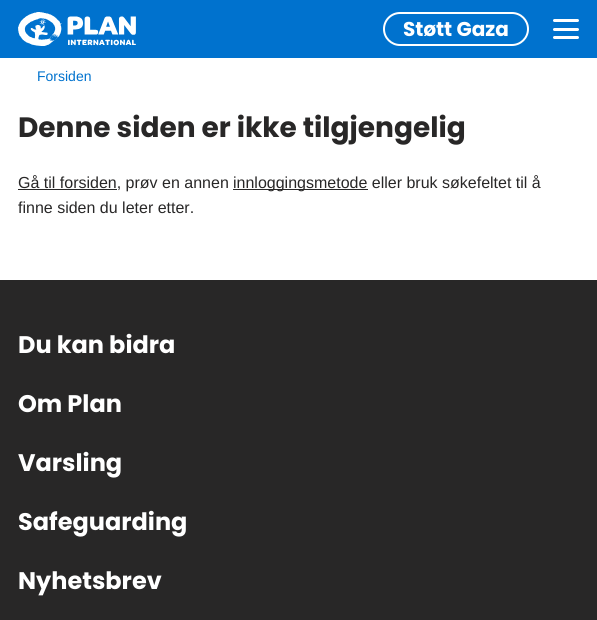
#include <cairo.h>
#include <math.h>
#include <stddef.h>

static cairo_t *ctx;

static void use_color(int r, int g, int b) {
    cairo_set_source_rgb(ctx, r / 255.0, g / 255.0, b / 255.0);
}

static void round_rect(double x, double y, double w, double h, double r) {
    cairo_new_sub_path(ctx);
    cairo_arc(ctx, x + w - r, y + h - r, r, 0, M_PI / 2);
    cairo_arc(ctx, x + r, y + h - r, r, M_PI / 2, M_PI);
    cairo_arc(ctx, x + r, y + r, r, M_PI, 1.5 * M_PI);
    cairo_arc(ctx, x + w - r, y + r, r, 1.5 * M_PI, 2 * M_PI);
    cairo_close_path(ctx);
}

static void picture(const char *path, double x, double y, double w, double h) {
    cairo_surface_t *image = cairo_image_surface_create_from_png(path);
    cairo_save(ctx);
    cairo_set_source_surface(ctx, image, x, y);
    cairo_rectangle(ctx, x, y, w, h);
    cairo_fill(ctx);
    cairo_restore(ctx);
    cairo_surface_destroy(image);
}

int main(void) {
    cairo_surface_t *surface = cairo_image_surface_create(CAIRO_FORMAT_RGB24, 597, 620);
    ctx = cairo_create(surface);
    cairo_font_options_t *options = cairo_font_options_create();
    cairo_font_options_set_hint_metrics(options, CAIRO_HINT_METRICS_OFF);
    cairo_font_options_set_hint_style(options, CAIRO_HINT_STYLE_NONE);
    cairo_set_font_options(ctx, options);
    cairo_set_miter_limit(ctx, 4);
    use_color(40, 39, 39);
    cairo_paint(ctx);
    use_color(0, 114, 206);
    cairo_rectangle(ctx, 0, 0, 597, 58);
    cairo_fill(ctx);
    picture("img1.png", 18, 12, 118, 34);
    round_rect(384, 13, 144, 32, 16);
    use_color(255, 255, 255);
    cairo_stroke(ctx);
    cairo_select_font_face(ctx, "Poppins", CAIRO_FONT_SLANT_NORMAL, CAIRO_FONT_WEIGHT_BOLD);
    cairo_set_font_size(ctx, 20);
    cairo_move_to(ctx, 403, 36);
    cairo_show_text(ctx, "Støtt Gaza");
    round_rect(553, 19, 26, 3, 1.5);
    cairo_fill(ctx);
    round_rect(553, 28, 26, 3, 1.5);
    cairo_fill(ctx);
    round_rect(553, 36, 26, 3, 1.5);
    cairo_fill(ctx);
    cairo_rectangle(ctx, 0, 58, 597, 222);
    cairo_fill(ctx);
    cairo_select_font_face(ctx, "Liberation Sans", CAIRO_FONT_SLANT_NORMAL, CAIRO_FONT_WEIGHT_NORMAL);
    cairo_set_font_size(ctx, 14);
    use_color(0, 114, 206);
    cairo_move_to(ctx, 37, 81);
    cairo_show_text(ctx, "Forsiden");
    cairo_select_font_face(ctx, "Poppins", CAIRO_FONT_SLANT_NORMAL, CAIRO_FONT_WEIGHT_BOLD);
    cairo_set_font_size(ctx, 28);
    use_color(40, 39, 39);
    cairo_move_to(ctx, 18, 137);
    cairo_show_text(ctx, "Denne siden er ikke tilgjengelig");
    cairo_rectangle(ctx, 18, 189, 99, 1);
    cairo_fill(ctx);
    cairo_select_font_face(ctx, "Liberation Sans", CAIRO_FONT_SLANT_NORMAL, CAIRO_FONT_WEIGHT_NORMAL);
    cairo_set_font_size(ctx, 16);
    cairo_move_to(ctx, 18, 188);
    cairo_show_text(ctx, "Gå til forsiden, prøv en annen");
    cairo_rectangle(ctx, 233, 189, 135, 1);
    cairo_fill(ctx);
    cairo_move_to(ctx, 233, 188);
    cairo_show_text(ctx, "innloggingsmetode eller bruk søkefeltet til å");
    cairo_move_to(ctx, 18, 213);
    cairo_show_text(ctx, "finne siden du leter etter.");
    cairo_select_font_face(ctx, "Poppins", CAIRO_FONT_SLANT_NORMAL, CAIRO_FONT_WEIGHT_BOLD);
    cairo_set_font_size(ctx, 24);
    use_color(255, 255, 255);
    cairo_move_to(ctx, 18, 353);
    cairo_show_text(ctx, "Du kan bidra");
    cairo_move_to(ctx, 18, 412);
    cairo_show_text(ctx, "Om Plan");
    cairo_move_to(ctx, 18, 471);
    cairo_show_text(ctx, "Varsling");
    cairo_move_to(ctx, 18, 530);
    cairo_show_text(ctx, "Safeguarding");
    cairo_move_to(ctx, 18, 589);
    cairo_show_text(ctx, "Nyhetsbrev");
    cairo_surface_write_to_png(surface, "result.png");
    cairo_font_options_destroy(options);
    cairo_destroy(ctx);
    cairo_surface_destroy(surface);
    return 0;
}
